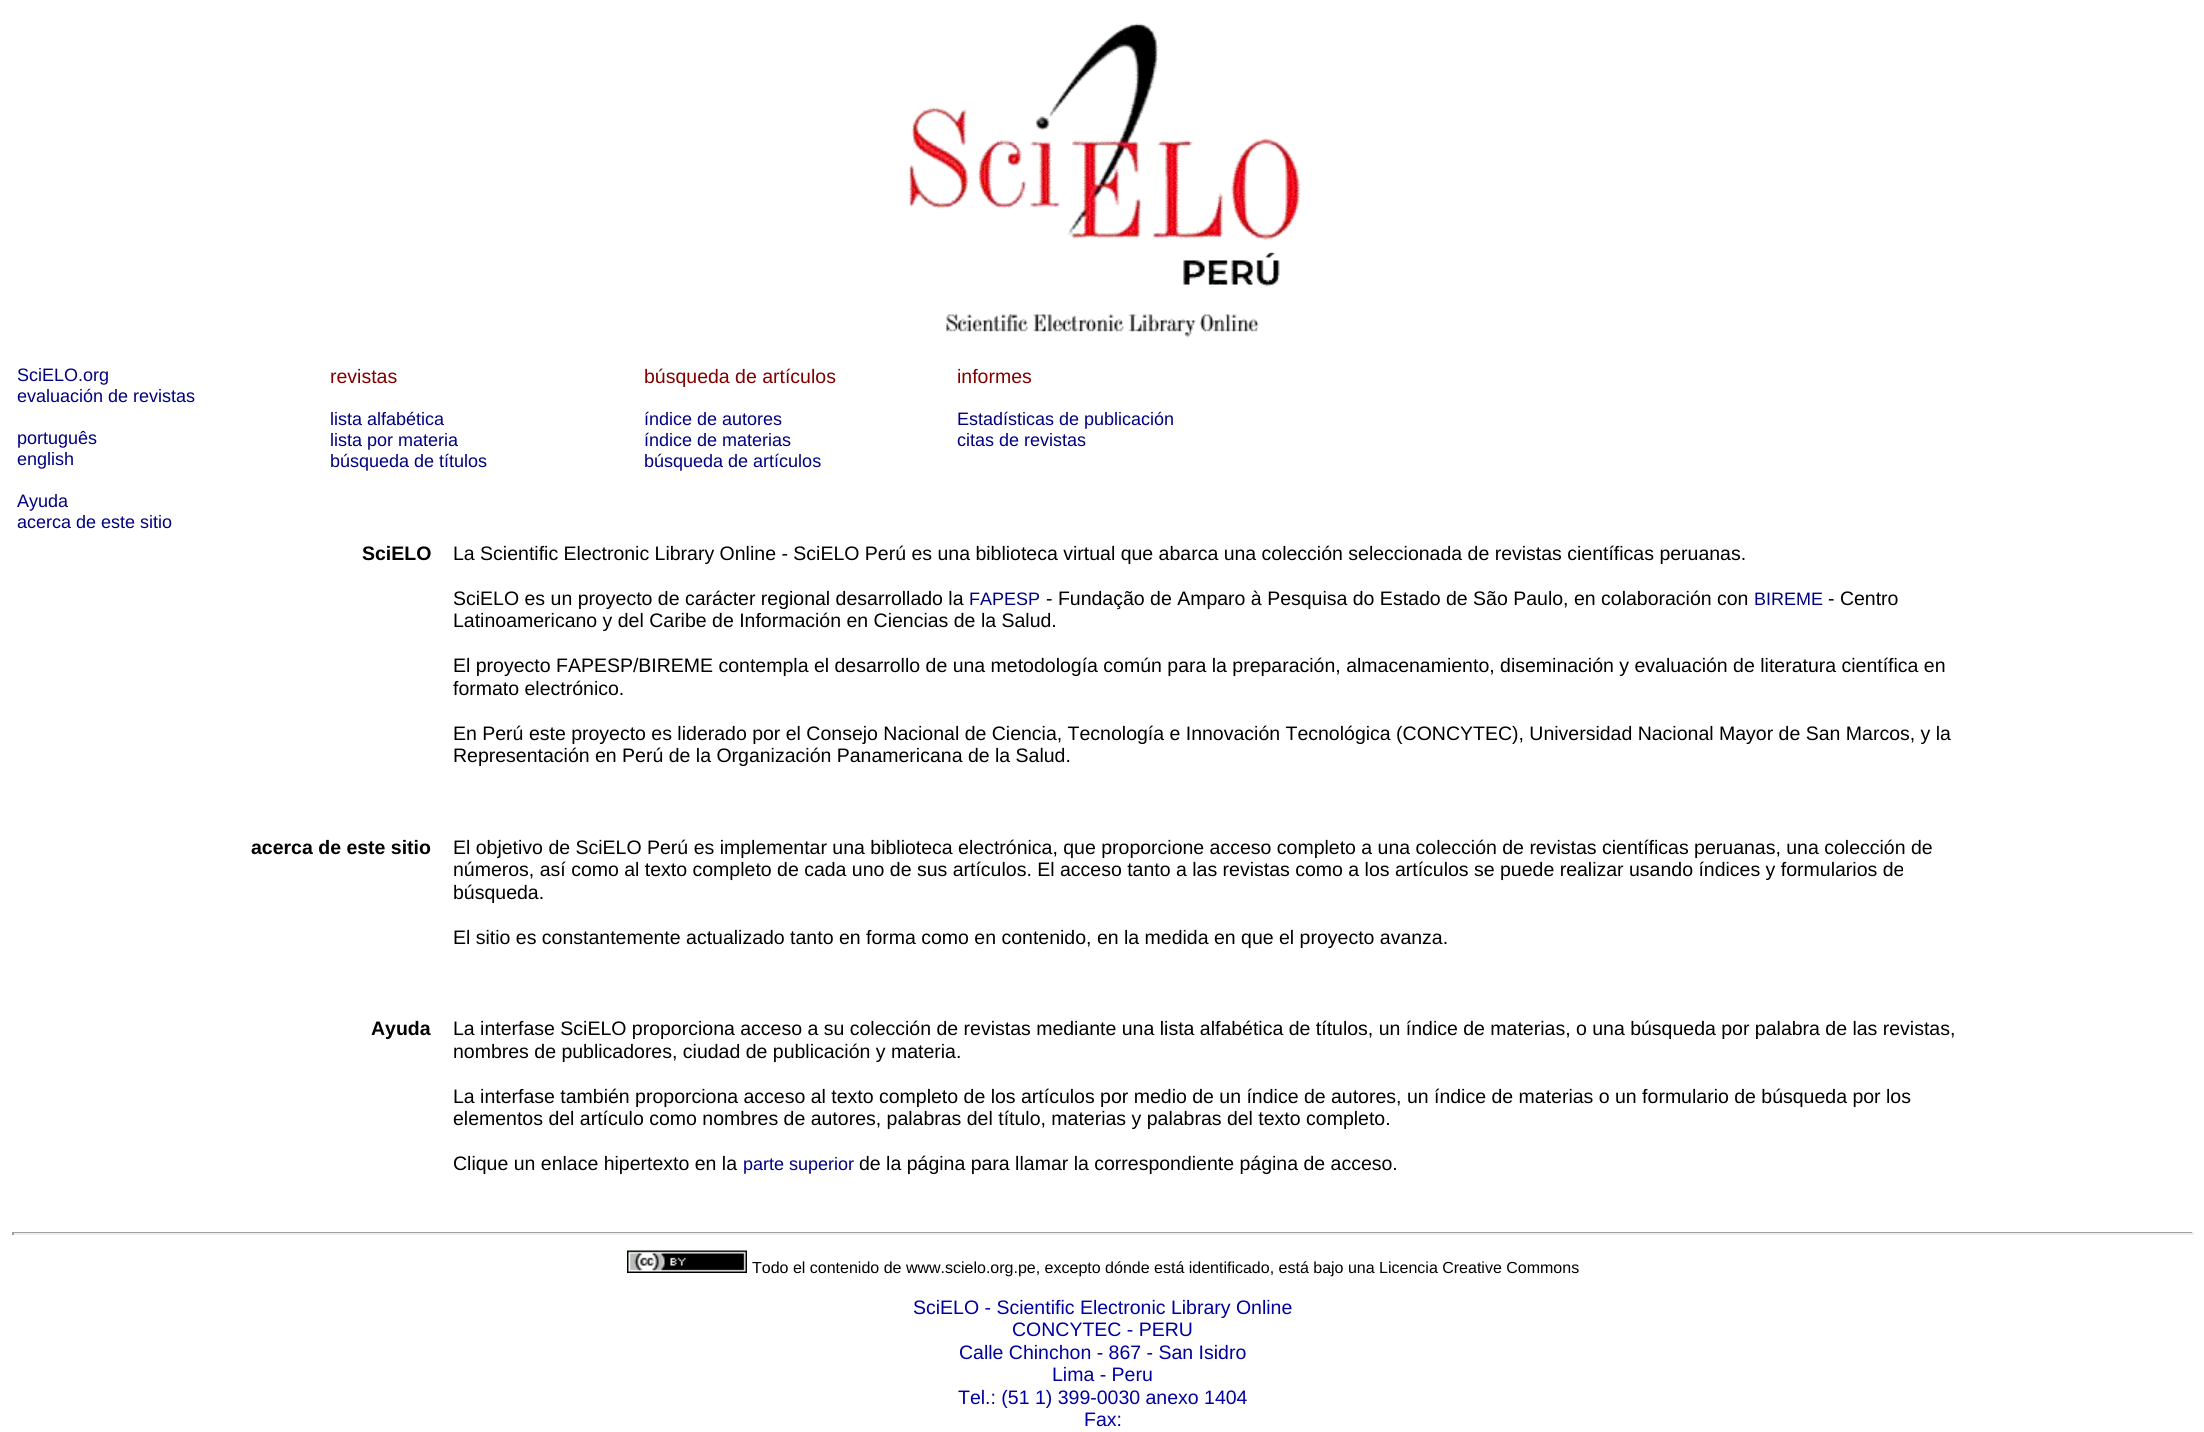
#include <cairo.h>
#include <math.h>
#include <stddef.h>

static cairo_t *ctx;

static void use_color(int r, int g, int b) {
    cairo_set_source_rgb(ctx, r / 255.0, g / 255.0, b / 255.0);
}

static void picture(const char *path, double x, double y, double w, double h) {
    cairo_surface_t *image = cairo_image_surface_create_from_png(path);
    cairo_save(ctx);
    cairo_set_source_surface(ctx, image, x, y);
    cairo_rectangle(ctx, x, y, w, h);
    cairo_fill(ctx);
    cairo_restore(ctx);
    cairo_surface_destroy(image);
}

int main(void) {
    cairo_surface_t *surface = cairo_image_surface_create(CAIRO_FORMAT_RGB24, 2204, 1432);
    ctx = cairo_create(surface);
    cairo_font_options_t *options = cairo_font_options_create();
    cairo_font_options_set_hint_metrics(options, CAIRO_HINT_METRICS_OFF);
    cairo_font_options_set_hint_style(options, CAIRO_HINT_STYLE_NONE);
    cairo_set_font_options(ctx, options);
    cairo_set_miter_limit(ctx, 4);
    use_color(255, 255, 255);
    cairo_paint(ctx);
    picture("img1.png", 908, 23, 393, 264);
    picture("img2.png", 946, 314, 313, 24);
    cairo_select_font_face(ctx, "Liberation Sans", CAIRO_FONT_SLANT_NORMAL, CAIRO_FONT_WEIGHT_NORMAL);
    cairo_set_font_size(ctx, 18);
    use_color(0, 0, 128);
    cairo_move_to(ctx, 17, 381);
    cairo_show_text(ctx, "SciELO.org");
    cairo_move_to(ctx, 17, 402);
    cairo_show_text(ctx, "evaluación de revistas");
    cairo_move_to(ctx, 17, 444);
    cairo_show_text(ctx, "português");
    cairo_move_to(ctx, 17, 465);
    cairo_show_text(ctx, "english");
    cairo_move_to(ctx, 17, 507);
    cairo_show_text(ctx, "Ayuda");
    cairo_move_to(ctx, 17, 528);
    cairo_show_text(ctx, "acerca de este sitio");
    cairo_set_font_size(ctx, 19.5);
    use_color(128, 0, 0);
    cairo_move_to(ctx, 330, 383);
    cairo_show_text(ctx, "revistas");
    cairo_set_font_size(ctx, 18);
    use_color(0, 0, 128);
    cairo_move_to(ctx, 330, 425);
    cairo_show_text(ctx, "lista alfabética");
    cairo_move_to(ctx, 330, 446);
    cairo_show_text(ctx, "lista por materia");
    cairo_move_to(ctx, 330, 467);
    cairo_show_text(ctx, "búsqueda de títulos");
    cairo_set_font_size(ctx, 19.5);
    use_color(128, 0, 0);
    cairo_move_to(ctx, 644, 383);
    cairo_show_text(ctx, "búsqueda de artículos");
    cairo_set_font_size(ctx, 18);
    use_color(0, 0, 128);
    cairo_move_to(ctx, 644, 425);
    cairo_show_text(ctx, "índice de autores");
    cairo_move_to(ctx, 644, 446);
    cairo_show_text(ctx, "índice de materias");
    cairo_move_to(ctx, 644, 467);
    cairo_show_text(ctx, "búsqueda de artículos");
    cairo_set_font_size(ctx, 19.5);
    use_color(128, 0, 0);
    cairo_move_to(ctx, 957, 383);
    cairo_show_text(ctx, "informes");
    cairo_set_font_size(ctx, 18);
    use_color(0, 0, 128);
    cairo_move_to(ctx, 957, 425);
    cairo_show_text(ctx, "Estadísticas de publicación");
    cairo_move_to(ctx, 957, 446);
    cairo_show_text(ctx, "citas de revistas");
    cairo_select_font_face(ctx, "Liberation Sans", CAIRO_FONT_SLANT_NORMAL, CAIRO_FONT_WEIGHT_BOLD);
    cairo_set_font_size(ctx, 19.5);
    use_color(0, 0, 0);
    cairo_move_to(ctx, 362, 560);
    cairo_show_text(ctx, "SciELO");
    cairo_select_font_face(ctx, "Liberation Sans", CAIRO_FONT_SLANT_NORMAL, CAIRO_FONT_WEIGHT_NORMAL);
    cairo_move_to(ctx, 453, 560);
    cairo_show_text(ctx, "La Scientific Electronic Library Online - SciELO Perú es una biblioteca virtual que abarca una colección seleccionada de revistas científicas peruanas.");
    cairo_move_to(ctx, 453, 605);
    cairo_show_text(ctx, "SciELO es un proyecto de carácter regional desarrollado la");
    cairo_set_font_size(ctx, 18);
    use_color(0, 0, 128);
    cairo_move_to(ctx, 969, 605);
    cairo_show_text(ctx, "FAPESP");
    cairo_set_font_size(ctx, 19.5);
    use_color(0, 0, 0);
    cairo_move_to(ctx, 1046, 605);
    cairo_show_text(ctx, "- Fundação de Amparo à Pesquisa do Estado de São Paulo, en colaboración con");
    cairo_set_font_size(ctx, 18);
    use_color(0, 0, 128);
    cairo_move_to(ctx, 1754, 605);
    cairo_show_text(ctx, "BIREME");
    cairo_set_font_size(ctx, 19.5);
    use_color(0, 0, 0);
    cairo_move_to(ctx, 1828, 605);
    cairo_show_text(ctx, "- Centro");
    cairo_move_to(ctx, 453, 627);
    cairo_show_text(ctx, "Latinoamericano y del Caribe de Información en Ciencias de la Salud.");
    cairo_move_to(ctx, 453, 672);
    cairo_show_text(ctx, "El proyecto FAPESP/BIREME contempla el desarrollo de una metodología común para la preparación, almacenamiento, diseminación y evaluación de literatura científica en");
    cairo_move_to(ctx, 453, 695);
    cairo_show_text(ctx, "formato electrónico.");
    cairo_move_to(ctx, 453, 740);
    cairo_show_text(ctx, "En Perú este proyecto es liderado por el Consejo Nacional de Ciencia, Tecnología e Innovación Tecnológica (CONCYTEC), Universidad Nacional Mayor de San Marcos, y la");
    cairo_move_to(ctx, 453, 762);
    cairo_show_text(ctx, "Representación en Perú de la Organización Panamericana de la Salud.");
    cairo_select_font_face(ctx, "Liberation Sans", CAIRO_FONT_SLANT_NORMAL, CAIRO_FONT_WEIGHT_BOLD);
    cairo_move_to(ctx, 251, 854);
    cairo_show_text(ctx, "acerca de este sitio");
    cairo_select_font_face(ctx, "Liberation Sans", CAIRO_FONT_SLANT_NORMAL, CAIRO_FONT_WEIGHT_NORMAL);
    cairo_move_to(ctx, 453, 854);
    cairo_show_text(ctx, "El objetivo de SciELO Perú es implementar una biblioteca electrónica, que proporcione acceso completo a una colección de revistas científicas peruanas, una colección de");
    cairo_move_to(ctx, 453, 876);
    cairo_show_text(ctx, "números, así como al texto completo de cada uno de sus artículos. El acceso tanto a las revistas como a los artículos se puede realizar usando índices y formularios de");
    cairo_move_to(ctx, 453, 899);
    cairo_show_text(ctx, "búsqueda.");
    cairo_move_to(ctx, 453, 944);
    cairo_show_text(ctx, "El sitio es constantemente actualizado tanto en forma como en contenido, en la medida en que el proyecto avanza.");
    cairo_select_font_face(ctx, "Liberation Sans", CAIRO_FONT_SLANT_NORMAL, CAIRO_FONT_WEIGHT_BOLD);
    cairo_move_to(ctx, 371, 1035);
    cairo_show_text(ctx, "Ayuda");
    cairo_select_font_face(ctx, "Liberation Sans", CAIRO_FONT_SLANT_NORMAL, CAIRO_FONT_WEIGHT_NORMAL);
    cairo_move_to(ctx, 453, 1035);
    cairo_show_text(ctx, "La interfase SciELO proporciona acceso a su colección de revistas mediante una lista alfabética de títulos, un índice de materias, o una búsqueda por palabra de las revistas,");
    cairo_move_to(ctx, 453, 1058);
    cairo_show_text(ctx, "nombres de publicadores, ciudad de publicación y materia.");
    cairo_move_to(ctx, 453, 1103);
    cairo_show_text(ctx, "La interfase también proporciona acceso al texto completo de los artículos por medio de un índice de autores, un índice de materias o un formulario de búsqueda por los");
    cairo_move_to(ctx, 453, 1125);
    cairo_show_text(ctx, "elementos del artículo como nombres de autores, palabras del título, materias y palabras del texto completo.");
    cairo_move_to(ctx, 453, 1170);
    cairo_show_text(ctx, "Clique un enlace hipertexto en la");
    cairo_set_font_size(ctx, 18);
    use_color(0, 0, 128);
    cairo_move_to(ctx, 743, 1170);
    cairo_show_text(ctx, "parte superior");
    cairo_set_font_size(ctx, 19.5);
    use_color(0, 0, 0);
    cairo_move_to(ctx, 859, 1170);
    cairo_show_text(ctx, "de la página para llamar la correspondiente página de acceso.");
    use_color(159, 159, 159);
    cairo_rectangle(ctx, 12, 1232, 2181, 1);
    cairo_fill(ctx);
    use_color(238, 238, 238);
    cairo_rectangle(ctx, 2192, 1232, 2, 3);
    cairo_fill(ctx);
    cairo_rectangle(ctx, 12, 1233, 2181, 2);
    cairo_fill(ctx);
    use_color(159, 159, 159);
    cairo_rectangle(ctx, 12, 1232, 2, 3);
    cairo_fill(ctx);
    picture("img3.png", 627, 1250, 120, 23);
    cairo_set_font_size(ctx, 16);
    use_color(0, 0, 0);
    cairo_move_to(ctx, 752, 1273);
    cairo_show_text(ctx, "Todo el contenido de www.scielo.org.pe, excepto dónde está identificado, está bajo una Licencia Creative Commons");
    cairo_set_font_size(ctx, 19.5);
    use_color(0, 0, 160);
    cairo_move_to(ctx, 913, 1314);
    cairo_show_text(ctx, "SciELO - Scientific Electronic Library Online");
    cairo_move_to(ctx, 1012, 1336);
    cairo_show_text(ctx, "CONCYTEC - PERU");
    cairo_move_to(ctx, 959, 1359);
    cairo_show_text(ctx, "Calle Chinchon - 867 - San Isidro");
    cairo_move_to(ctx, 1052, 1381);
    cairo_show_text(ctx, "Lima - Peru");
    cairo_move_to(ctx, 958, 1404);
    cairo_show_text(ctx, "Tel.: (51 1) 399-0030 anexo 1404");
    cairo_move_to(ctx, 1084, 1426);
    cairo_show_text(ctx, "Fax:");
    cairo_surface_write_to_png(surface, "result.png");
    cairo_font_options_destroy(options);
    cairo_destroy(ctx);
    cairo_surface_destroy(surface);
    return 0;
}
